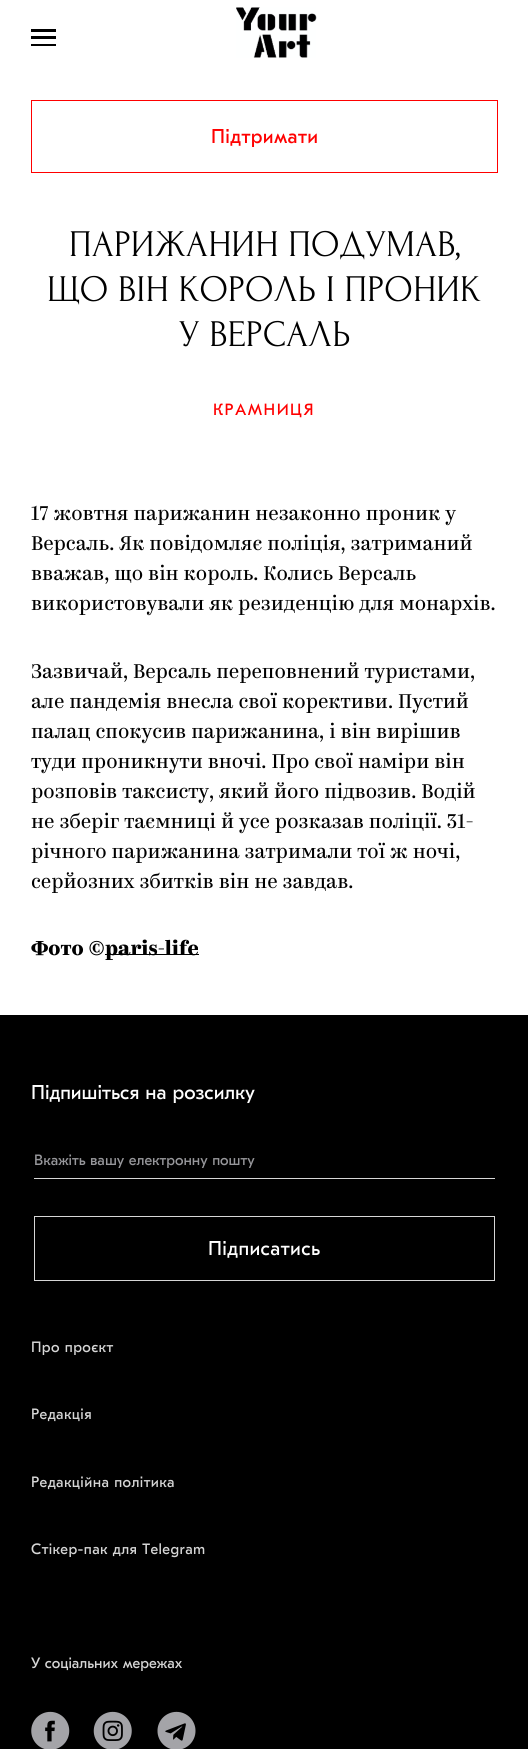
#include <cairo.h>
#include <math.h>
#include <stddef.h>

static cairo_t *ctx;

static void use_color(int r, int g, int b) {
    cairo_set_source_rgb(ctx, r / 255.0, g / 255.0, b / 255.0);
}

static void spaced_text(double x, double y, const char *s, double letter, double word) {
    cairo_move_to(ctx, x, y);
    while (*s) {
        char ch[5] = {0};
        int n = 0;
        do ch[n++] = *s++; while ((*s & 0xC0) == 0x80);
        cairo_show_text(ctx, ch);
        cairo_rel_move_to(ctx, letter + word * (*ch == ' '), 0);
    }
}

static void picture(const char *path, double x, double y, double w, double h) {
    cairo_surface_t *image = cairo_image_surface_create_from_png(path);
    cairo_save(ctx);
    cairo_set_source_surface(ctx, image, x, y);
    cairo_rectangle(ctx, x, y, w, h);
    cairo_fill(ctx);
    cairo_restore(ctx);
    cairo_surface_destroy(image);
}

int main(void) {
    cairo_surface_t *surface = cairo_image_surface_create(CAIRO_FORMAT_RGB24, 528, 1749);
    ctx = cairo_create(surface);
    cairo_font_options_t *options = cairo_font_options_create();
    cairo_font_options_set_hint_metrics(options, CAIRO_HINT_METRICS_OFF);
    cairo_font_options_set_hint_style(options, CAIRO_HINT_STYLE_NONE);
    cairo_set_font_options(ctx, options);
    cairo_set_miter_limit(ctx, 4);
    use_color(255, 255, 255);
    cairo_paint(ctx);
    use_color(0, 0, 0);
    cairo_rectangle(ctx, 31, 29, 25, 3);
    cairo_fill(ctx);
    cairo_rectangle(ctx, 31, 36, 25, 3);
    cairo_fill(ctx);
    cairo_rectangle(ctx, 31, 44, 25, 2);
    cairo_fill(ctx);
    picture("img1.png", 236, 7, 81, 51);
    cairo_rectangle(ctx, 31.5, 100.5, 466, 72);
    use_color(255, 0, 0);
    cairo_set_line_width(ctx, 1);
    cairo_stroke(ctx);
    cairo_select_font_face(ctx, "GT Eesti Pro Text", CAIRO_FONT_SLANT_NORMAL, CAIRO_FONT_WEIGHT_NORMAL);
    cairo_set_font_size(ctx, 20);
    spaced_text(211, 143, "Підтримати", 0.4, 0);
    cairo_select_font_face(ctx, "Forum", CAIRO_FONT_SLANT_NORMAL, CAIRO_FONT_WEIGHT_NORMAL);
    cairo_set_font_size(ctx, 37.5);
    use_color(0, 0, 0);
    cairo_move_to(ctx, 69, 256);
    cairo_show_text(ctx, "ПАРИЖАНИН ПОДУМАВ,");
    cairo_move_to(ctx, 47, 301);
    cairo_show_text(ctx, "ЩО ВІН КОРОЛЬ І ПРОНИК");
    cairo_move_to(ctx, 179, 346);
    cairo_show_text(ctx, "У ВЕРСАЛЬ");
    cairo_select_font_face(ctx, "GT Eesti Pro Text", CAIRO_FONT_SLANT_NORMAL, CAIRO_FONT_WEIGHT_NORMAL);
    cairo_set_font_size(ctx, 16.25);
    use_color(255, 0, 0);
    spaced_text(213, 415, "КРАМНИЦЯ", 1.5, 0);
    cairo_select_font_face(ctx, "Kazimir", CAIRO_FONT_SLANT_NORMAL, CAIRO_FONT_WEIGHT_NORMAL);
    cairo_set_font_size(ctx, 20);
    use_color(0, 0, 0);
    cairo_move_to(ctx, 31, 520);
    cairo_show_text(ctx, "17 жовтня парижанин незаконно проник у");
    cairo_move_to(ctx, 31, 550);
    cairo_show_text(ctx, "Версаль. Як повідомляє поліція, затриманий");
    cairo_move_to(ctx, 31, 580);
    cairo_show_text(ctx, "вважав, що він король. Колись Версаль");
    cairo_move_to(ctx, 31, 610);
    cairo_show_text(ctx, "використовували як резиденцію для монархів.");
    cairo_move_to(ctx, 31, 678);
    cairo_show_text(ctx, "Зазвичай, Версаль переповнений туристами,");
    cairo_move_to(ctx, 31, 708);
    cairo_show_text(ctx, "але пандемія внесла свої корективи. Пустий");
    cairo_move_to(ctx, 31, 738);
    cairo_show_text(ctx, "палац спокусив парижанина, і він вирішив");
    cairo_move_to(ctx, 31, 768);
    cairo_show_text(ctx, "туди проникнути вночі. Про свої наміри він");
    cairo_move_to(ctx, 31, 798);
    cairo_show_text(ctx, "розповів таксисту, який його підвозив. Водій");
    cairo_move_to(ctx, 31, 828);
    cairo_show_text(ctx, "не зберіг таємниці й усе розказав поліції. 31-");
    cairo_move_to(ctx, 31, 858);
    cairo_show_text(ctx, "річного парижанина затримали тої ж ночі,");
    cairo_move_to(ctx, 31, 888);
    cairo_show_text(ctx, "серйозних збитків він не завдав.");
    cairo_select_font_face(ctx, "Kazimir", CAIRO_FONT_SLANT_NORMAL, CAIRO_FONT_WEIGHT_BOLD);
    cairo_move_to(ctx, 31, 955);
    cairo_show_text(ctx, "Фото ©");
    cairo_rectangle(ctx, 105, 954, 94, 1);
    cairo_fill(ctx);
    cairo_move_to(ctx, 105, 955);
    cairo_show_text(ctx, "paris-life");
    cairo_rectangle(ctx, 0, 1015, 528, 734);
    cairo_fill(ctx);
    cairo_select_font_face(ctx, "GT Eesti Pro Text", CAIRO_FONT_SLANT_NORMAL, CAIRO_FONT_WEIGHT_NORMAL);
    use_color(255, 255, 255);
    cairo_move_to(ctx, 31, 1099);
    cairo_show_text(ctx, "Підпишіться на розсилку");
    use_color(214, 214, 214);
    cairo_rectangle(ctx, 34, 1178, 461, 1);
    cairo_fill(ctx);
    cairo_set_font_size(ctx, 15);
    use_color(151, 151, 155);
    cairo_move_to(ctx, 34, 1165);
    cairo_show_text(ctx, "Вкажіть вашу електронну пошту");
    cairo_rectangle(ctx, 34.5, 1216.5, 460, 64);
    use_color(214, 214, 214);
    cairo_stroke(ctx);
    cairo_set_font_size(ctx, 20);
    use_color(255, 255, 255);
    spaced_text(208, 1255, "Підписатись", 0.4, 0);
    cairo_set_font_size(ctx, 15);
    use_color(214, 214, 214);
    spaced_text(31, 1352, "Про проєкт", 0.4, 0);
    spaced_text(31, 1419, "Редакція", 0.4, 0);
    spaced_text(31, 1487, "Редакційна політика", 0.4, 0);
    spaced_text(31, 1554, "Стікер-пак для Telegram", 0.4, 0);
    cairo_move_to(ctx, 31, 1668);
    cairo_show_text(ctx, "У соціальних мережах");
    picture("img2.png", 31, 1711, 39, 38);
    picture("img3.png", 93, 1711, 39, 38);
    picture("img4.png", 157, 1711, 39, 38);
    cairo_surface_write_to_png(surface, "result.png");
    cairo_font_options_destroy(options);
    cairo_destroy(ctx);
    cairo_surface_destroy(surface);
    return 0;
}
